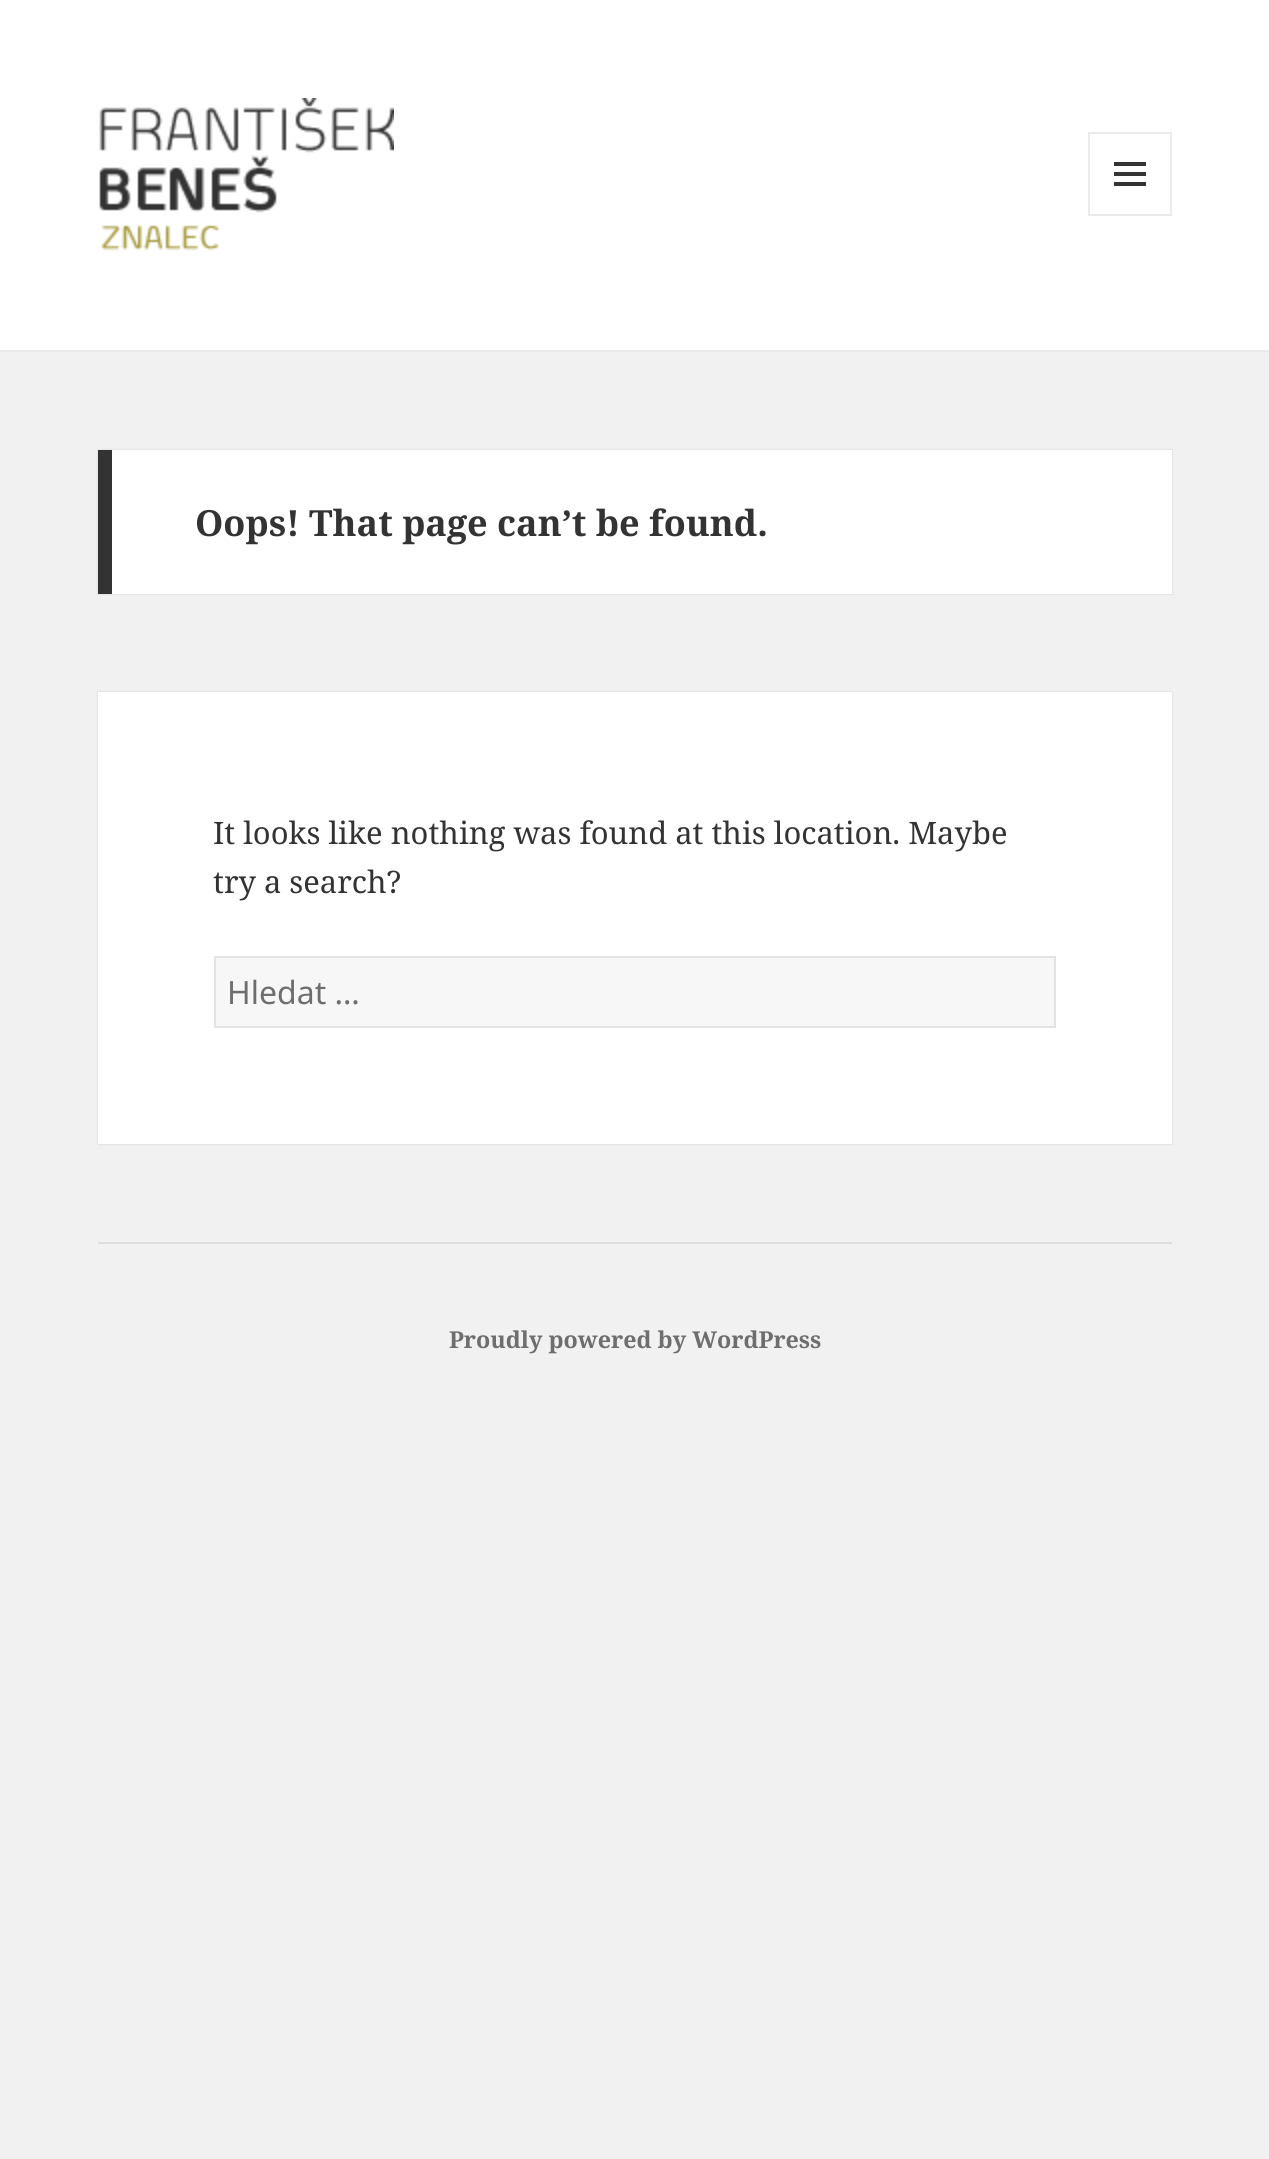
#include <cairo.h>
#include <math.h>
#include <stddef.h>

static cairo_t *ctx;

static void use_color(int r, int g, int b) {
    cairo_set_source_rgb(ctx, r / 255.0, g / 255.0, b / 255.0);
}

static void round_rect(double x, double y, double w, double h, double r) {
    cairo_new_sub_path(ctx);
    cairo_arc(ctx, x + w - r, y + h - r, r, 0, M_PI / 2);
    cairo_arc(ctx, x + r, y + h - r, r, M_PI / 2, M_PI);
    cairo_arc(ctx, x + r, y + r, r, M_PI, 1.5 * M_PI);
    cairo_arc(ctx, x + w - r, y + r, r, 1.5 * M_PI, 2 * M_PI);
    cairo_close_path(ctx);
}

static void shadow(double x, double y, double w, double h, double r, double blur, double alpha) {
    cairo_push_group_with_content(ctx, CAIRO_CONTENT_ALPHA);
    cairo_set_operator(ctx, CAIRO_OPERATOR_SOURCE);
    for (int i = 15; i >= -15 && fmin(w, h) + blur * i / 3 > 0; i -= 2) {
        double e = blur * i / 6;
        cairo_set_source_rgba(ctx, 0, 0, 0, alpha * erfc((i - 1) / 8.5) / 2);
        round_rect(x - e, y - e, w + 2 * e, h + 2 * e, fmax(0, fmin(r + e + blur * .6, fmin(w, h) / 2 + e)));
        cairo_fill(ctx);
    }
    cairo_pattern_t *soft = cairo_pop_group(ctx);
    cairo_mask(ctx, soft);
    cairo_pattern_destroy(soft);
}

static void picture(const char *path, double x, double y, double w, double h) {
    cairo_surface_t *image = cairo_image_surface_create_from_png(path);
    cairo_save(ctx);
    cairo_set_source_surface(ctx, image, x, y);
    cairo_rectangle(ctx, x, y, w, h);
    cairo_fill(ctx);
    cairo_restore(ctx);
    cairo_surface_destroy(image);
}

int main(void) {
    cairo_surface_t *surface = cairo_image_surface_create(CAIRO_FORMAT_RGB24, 1269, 2159);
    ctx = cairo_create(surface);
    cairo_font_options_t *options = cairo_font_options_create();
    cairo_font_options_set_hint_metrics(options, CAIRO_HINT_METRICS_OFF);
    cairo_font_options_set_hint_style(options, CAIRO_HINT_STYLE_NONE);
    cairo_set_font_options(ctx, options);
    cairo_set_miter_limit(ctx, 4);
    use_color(241, 241, 241);
    cairo_paint(ctx);
    use_color(255, 255, 255);
    cairo_rectangle(ctx, 0, 0, 1269, 350);
    cairo_fill(ctx);
    use_color(235, 235, 235);
    cairo_rectangle(ctx, 0, 350, 1269, 2);
    cairo_fill(ctx);
    picture("img1.png", 99, 98, 295, 153);
    cairo_rectangle(ctx, 1089, 133, 82, 82);
    cairo_stroke(ctx);
    picture("img2.png", 1114, 162, 32, 24);
    use_color(0, 0, 0);
    shadow(98, 450, 1074, 144, 0, 1, 0.15);
    use_color(255, 255, 255);
    cairo_rectangle(ctx, 112, 450, 1060, 144);
    cairo_fill(ctx);
    use_color(51, 51, 51);
    cairo_rectangle(ctx, 98, 450, 14, 144);
    cairo_fill(ctx);
    cairo_select_font_face(ctx, "Noto Serif", CAIRO_FONT_SLANT_NORMAL, CAIRO_FONT_WEIGHT_BOLD);
    cairo_set_font_size(ctx, 36);
    cairo_move_to(ctx, 195, 536);
    cairo_show_text(ctx, "Oops! That page can’t be found.");
    use_color(0, 0, 0);
    shadow(98, 692, 1074, 452, 0, 1, 0.15);
    use_color(255, 255, 255);
    cairo_rectangle(ctx, 98, 692, 1074, 452);
    cairo_fill(ctx);
    cairo_select_font_face(ctx, "Noto Serif", CAIRO_FONT_SLANT_NORMAL, CAIRO_FONT_WEIGHT_NORMAL);
    cairo_set_font_size(ctx, 30.9);
    use_color(51, 51, 51);
    cairo_move_to(ctx, 213, 844);
    cairo_show_text(ctx, "It looks like nothing was found at this location. Maybe");
    cairo_move_to(ctx, 213, 893);
    cairo_show_text(ctx, "try a search?");
    use_color(247, 247, 247);
    cairo_rectangle(ctx, 215, 957, 840, 70);
    cairo_fill_preserve(ctx);
    use_color(227, 227, 227);
    cairo_stroke(ctx);
    cairo_select_font_face(ctx, "Noto Sans", CAIRO_FONT_SLANT_NORMAL, CAIRO_FONT_WEIGHT_NORMAL);
    cairo_set_font_size(ctx, 32);
    use_color(110, 110, 110);
    cairo_move_to(ctx, 227, 1004);
    cairo_show_text(ctx, "Hledat …");
    use_color(222, 222, 222);
    cairo_rectangle(ctx, 98, 1242, 1074, 2);
    cairo_fill(ctx);
    cairo_select_font_face(ctx, "Noto Serif", CAIRO_FONT_SLANT_NORMAL, CAIRO_FONT_WEIGHT_BOLD);
    cairo_set_font_size(ctx, 23.25);
    use_color(110, 110, 110);
    cairo_move_to(ctx, 449, 1348);
    cairo_show_text(ctx, "Proudly powered by WordPress");
    cairo_surface_write_to_png(surface, "result.png");
    cairo_font_options_destroy(options);
    cairo_destroy(ctx);
    cairo_surface_destroy(surface);
    return 0;
}
